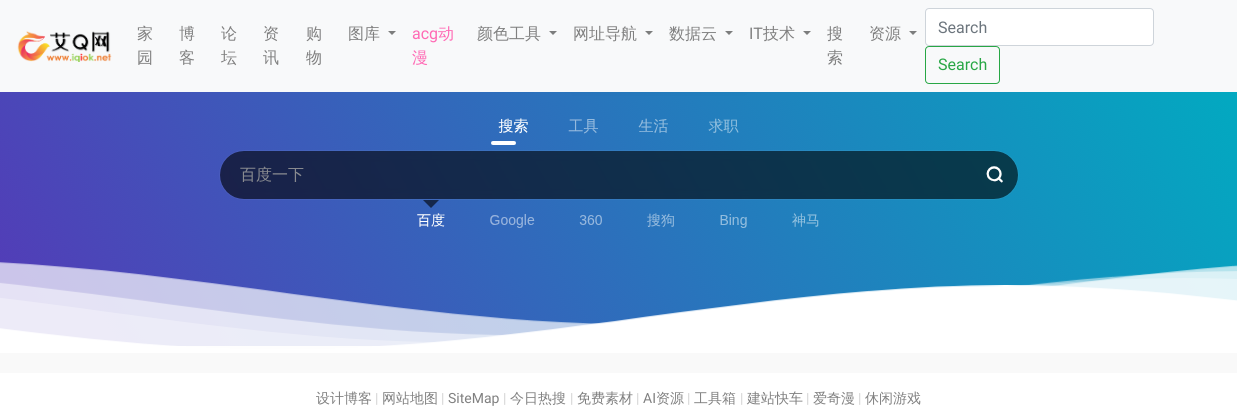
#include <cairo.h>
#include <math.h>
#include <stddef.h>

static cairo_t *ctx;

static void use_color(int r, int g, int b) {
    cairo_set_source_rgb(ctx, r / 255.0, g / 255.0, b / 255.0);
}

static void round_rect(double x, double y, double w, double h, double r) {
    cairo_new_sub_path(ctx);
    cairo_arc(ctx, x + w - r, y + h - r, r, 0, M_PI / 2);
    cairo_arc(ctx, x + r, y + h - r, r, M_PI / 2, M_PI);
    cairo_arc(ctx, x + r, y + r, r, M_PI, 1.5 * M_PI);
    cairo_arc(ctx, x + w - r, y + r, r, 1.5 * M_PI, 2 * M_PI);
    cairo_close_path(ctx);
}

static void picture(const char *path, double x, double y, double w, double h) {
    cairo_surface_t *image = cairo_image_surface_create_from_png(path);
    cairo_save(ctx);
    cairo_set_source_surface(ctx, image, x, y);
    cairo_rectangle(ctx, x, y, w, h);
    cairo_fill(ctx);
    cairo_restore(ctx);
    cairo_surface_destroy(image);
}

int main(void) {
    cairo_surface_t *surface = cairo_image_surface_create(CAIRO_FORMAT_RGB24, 1237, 410);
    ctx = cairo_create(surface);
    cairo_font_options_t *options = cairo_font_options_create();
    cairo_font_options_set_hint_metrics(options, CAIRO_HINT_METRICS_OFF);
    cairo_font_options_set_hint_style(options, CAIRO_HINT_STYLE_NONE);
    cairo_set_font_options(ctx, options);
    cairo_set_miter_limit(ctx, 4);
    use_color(255, 255, 255);
    cairo_paint(ctx);
    use_color(248, 249, 250);
    cairo_rectangle(ctx, 0, 0, 1237, 92);
    cairo_fill(ctx);
    picture("img1.png", 17, 31, 95, 31);
    cairo_select_font_face(ctx, "WenQuanYi Zen Hei Medium", CAIRO_FONT_SLANT_NORMAL, CAIRO_FONT_WEIGHT_NORMAL);
    cairo_set_font_size(ctx, 16);
    use_color(128, 128, 128);
    cairo_move_to(ctx, 137, 39);
    cairo_show_text(ctx, "家");
    cairo_move_to(ctx, 137, 63);
    cairo_show_text(ctx, "园");
    cairo_move_to(ctx, 179, 39);
    cairo_show_text(ctx, "博");
    cairo_move_to(ctx, 179, 63);
    cairo_show_text(ctx, "客");
    cairo_move_to(ctx, 221, 39);
    cairo_show_text(ctx, "论");
    cairo_move_to(ctx, 221, 63);
    cairo_show_text(ctx, "坛");
    cairo_move_to(ctx, 263, 39);
    cairo_show_text(ctx, "资");
    cairo_move_to(ctx, 263, 63);
    cairo_show_text(ctx, "讯");
    cairo_move_to(ctx, 306, 39);
    cairo_show_text(ctx, "购");
    cairo_move_to(ctx, 306, 63);
    cairo_show_text(ctx, "物");
    cairo_move_to(ctx, 348, 39);
    cairo_show_text(ctx, "图库");
    use_color(124, 125, 125);
    cairo_new_path(ctx);
    cairo_move_to(ctx, 388, 31);
    cairo_line_to(ctx, 396, 31);
    cairo_line_to(ctx, 392, 35);
    cairo_close_path(ctx);
    cairo_fill(ctx);
    cairo_select_font_face(ctx, "Roboto", CAIRO_FONT_SLANT_NORMAL, CAIRO_FONT_WEIGHT_NORMAL);
    use_color(255, 105, 180);
    cairo_move_to(ctx, 412, 39);
    cairo_show_text(ctx, "acg");
    cairo_select_font_face(ctx, "WenQuanYi Zen Hei Medium", CAIRO_FONT_SLANT_NORMAL, CAIRO_FONT_WEIGHT_NORMAL);
    cairo_move_to(ctx, 438, 39);
    cairo_show_text(ctx, "动");
    cairo_move_to(ctx, 412, 63);
    cairo_show_text(ctx, "漫");
    use_color(128, 128, 128);
    cairo_move_to(ctx, 477, 39);
    cairo_show_text(ctx, "颜色工具");
    use_color(124, 125, 125);
    cairo_new_path(ctx);
    cairo_move_to(ctx, 549, 31);
    cairo_line_to(ctx, 557, 31);
    cairo_line_to(ctx, 553, 35);
    cairo_close_path(ctx);
    cairo_fill(ctx);
    use_color(128, 128, 128);
    cairo_move_to(ctx, 573, 39);
    cairo_show_text(ctx, "网址导航");
    use_color(124, 125, 125);
    cairo_new_path(ctx);
    cairo_move_to(ctx, 645, 31);
    cairo_line_to(ctx, 653, 31);
    cairo_line_to(ctx, 649, 35);
    cairo_close_path(ctx);
    cairo_fill(ctx);
    use_color(128, 128, 128);
    cairo_move_to(ctx, 669, 39);
    cairo_show_text(ctx, "数据云");
    use_color(124, 125, 125);
    cairo_new_path(ctx);
    cairo_move_to(ctx, 725, 31);
    cairo_line_to(ctx, 733, 31);
    cairo_line_to(ctx, 729, 35);
    cairo_close_path(ctx);
    cairo_fill(ctx);
    cairo_select_font_face(ctx, "Roboto", CAIRO_FONT_SLANT_NORMAL, CAIRO_FONT_WEIGHT_NORMAL);
    use_color(128, 128, 128);
    cairo_move_to(ctx, 749, 39);
    cairo_show_text(ctx, "IT");
    cairo_select_font_face(ctx, "WenQuanYi Zen Hei Medium", CAIRO_FONT_SLANT_NORMAL, CAIRO_FONT_WEIGHT_NORMAL);
    cairo_move_to(ctx, 763, 39);
    cairo_show_text(ctx, "技术");
    use_color(124, 125, 125);
    cairo_new_path(ctx);
    cairo_move_to(ctx, 803, 31);
    cairo_line_to(ctx, 811, 31);
    cairo_line_to(ctx, 807, 35);
    cairo_close_path(ctx);
    cairo_fill(ctx);
    use_color(128, 128, 128);
    cairo_move_to(ctx, 827, 39);
    cairo_show_text(ctx, "搜");
    cairo_move_to(ctx, 827, 63);
    cairo_show_text(ctx, "索");
    cairo_move_to(ctx, 869, 39);
    cairo_show_text(ctx, "资源");
    use_color(124, 125, 125);
    cairo_new_path(ctx);
    cairo_move_to(ctx, 909, 31);
    cairo_line_to(ctx, 917, 31);
    cairo_line_to(ctx, 913, 35);
    cairo_close_path(ctx);
    cairo_fill(ctx);
    use_color(255, 255, 255);
    round_rect(925.5, 8.5, 228, 37, 3.5);
    cairo_fill_preserve(ctx);
    use_color(206, 212, 218);
    cairo_set_line_width(ctx, 1);
    cairo_stroke(ctx);
    cairo_select_font_face(ctx, "Roboto", CAIRO_FONT_SLANT_NORMAL, CAIRO_FONT_WEIGHT_NORMAL);
    use_color(108, 117, 125);
    cairo_move_to(ctx, 938, 33);
    cairo_show_text(ctx, "Search");
    round_rect(925.5, 46.5, 74, 37, 3.5);
    use_color(40, 167, 69);
    cairo_stroke(ctx);
    cairo_move_to(ctx, 938, 70);
    cairo_show_text(ctx, "Search");
    picture("img2.png", 0, 92, 1237, 281);
    cairo_select_font_face(ctx, "WenQuanYi Zen Hei Medium", CAIRO_FONT_SLANT_NORMAL, CAIRO_FONT_WEIGHT_NORMAL);
    cairo_set_font_size(ctx, 14);
    use_color(128, 128, 128);
    cairo_move_to(ctx, 316, 403);
    cairo_show_text(ctx, "设计博客");
    cairo_select_font_face(ctx, "Roboto", CAIRO_FONT_SLANT_NORMAL, CAIRO_FONT_WEIGHT_NORMAL);
    use_color(211, 211, 211);
    cairo_move_to(ctx, 375, 403);
    cairo_show_text(ctx, "|");
    cairo_select_font_face(ctx, "WenQuanYi Zen Hei Medium", CAIRO_FONT_SLANT_NORMAL, CAIRO_FONT_WEIGHT_NORMAL);
    use_color(128, 128, 128);
    cairo_move_to(ctx, 382, 403);
    cairo_show_text(ctx, "网站地图");
    cairo_select_font_face(ctx, "Roboto", CAIRO_FONT_SLANT_NORMAL, CAIRO_FONT_WEIGHT_NORMAL);
    use_color(211, 211, 211);
    cairo_move_to(ctx, 441, 403);
    cairo_show_text(ctx, "|");
    use_color(128, 128, 128);
    cairo_move_to(ctx, 448, 403);
    cairo_show_text(ctx, "SiteMap");
    use_color(211, 211, 211);
    cairo_move_to(ctx, 503, 403);
    cairo_show_text(ctx, "|");
    cairo_select_font_face(ctx, "WenQuanYi Zen Hei Medium", CAIRO_FONT_SLANT_NORMAL, CAIRO_FONT_WEIGHT_NORMAL);
    use_color(128, 128, 128);
    cairo_move_to(ctx, 510, 403);
    cairo_show_text(ctx, "今日热搜");
    cairo_select_font_face(ctx, "Roboto", CAIRO_FONT_SLANT_NORMAL, CAIRO_FONT_WEIGHT_NORMAL);
    use_color(211, 211, 211);
    cairo_move_to(ctx, 570, 403);
    cairo_show_text(ctx, "|");
    cairo_select_font_face(ctx, "WenQuanYi Zen Hei Medium", CAIRO_FONT_SLANT_NORMAL, CAIRO_FONT_WEIGHT_NORMAL);
    use_color(128, 128, 128);
    cairo_move_to(ctx, 577, 403);
    cairo_show_text(ctx, "免费素材");
    cairo_select_font_face(ctx, "Roboto", CAIRO_FONT_SLANT_NORMAL, CAIRO_FONT_WEIGHT_NORMAL);
    use_color(211, 211, 211);
    cairo_move_to(ctx, 636, 403);
    cairo_show_text(ctx, "|");
    use_color(128, 128, 128);
    cairo_move_to(ctx, 643, 403);
    cairo_show_text(ctx, "AI");
    cairo_select_font_face(ctx, "WenQuanYi Zen Hei Medium", CAIRO_FONT_SLANT_NORMAL, CAIRO_FONT_WEIGHT_NORMAL);
    cairo_move_to(ctx, 656, 403);
    cairo_show_text(ctx, "资源");
    cairo_select_font_face(ctx, "Roboto", CAIRO_FONT_SLANT_NORMAL, CAIRO_FONT_WEIGHT_NORMAL);
    use_color(211, 211, 211);
    cairo_move_to(ctx, 687, 403);
    cairo_show_text(ctx, "|");
    cairo_select_font_face(ctx, "WenQuanYi Zen Hei Medium", CAIRO_FONT_SLANT_NORMAL, CAIRO_FONT_WEIGHT_NORMAL);
    use_color(128, 128, 128);
    cairo_move_to(ctx, 694, 403);
    cairo_show_text(ctx, "工具箱");
    cairo_select_font_face(ctx, "Roboto", CAIRO_FONT_SLANT_NORMAL, CAIRO_FONT_WEIGHT_NORMAL);
    use_color(211, 211, 211);
    cairo_move_to(ctx, 740, 403);
    cairo_show_text(ctx, "|");
    cairo_select_font_face(ctx, "WenQuanYi Zen Hei Medium", CAIRO_FONT_SLANT_NORMAL, CAIRO_FONT_WEIGHT_NORMAL);
    use_color(128, 128, 128);
    cairo_move_to(ctx, 747, 403);
    cairo_show_text(ctx, "建站快车");
    cairo_select_font_face(ctx, "Roboto", CAIRO_FONT_SLANT_NORMAL, CAIRO_FONT_WEIGHT_NORMAL);
    use_color(211, 211, 211);
    cairo_move_to(ctx, 806, 403);
    cairo_show_text(ctx, "|");
    cairo_select_font_face(ctx, "WenQuanYi Zen Hei Medium", CAIRO_FONT_SLANT_NORMAL, CAIRO_FONT_WEIGHT_NORMAL);
    use_color(128, 128, 128);
    cairo_move_to(ctx, 813, 403);
    cairo_show_text(ctx, "爱奇漫");
    cairo_select_font_face(ctx, "Roboto", CAIRO_FONT_SLANT_NORMAL, CAIRO_FONT_WEIGHT_NORMAL);
    use_color(211, 211, 211);
    cairo_move_to(ctx, 858, 403);
    cairo_show_text(ctx, "|");
    cairo_select_font_face(ctx, "WenQuanYi Zen Hei Medium", CAIRO_FONT_SLANT_NORMAL, CAIRO_FONT_WEIGHT_NORMAL);
    use_color(128, 128, 128);
    cairo_move_to(ctx, 865, 403);
    cairo_show_text(ctx, "休闲游戏");
    cairo_surface_write_to_png(surface, "result.png");
    cairo_font_options_destroy(options);
    cairo_destroy(ctx);
    cairo_surface_destroy(surface);
    return 0;
}
